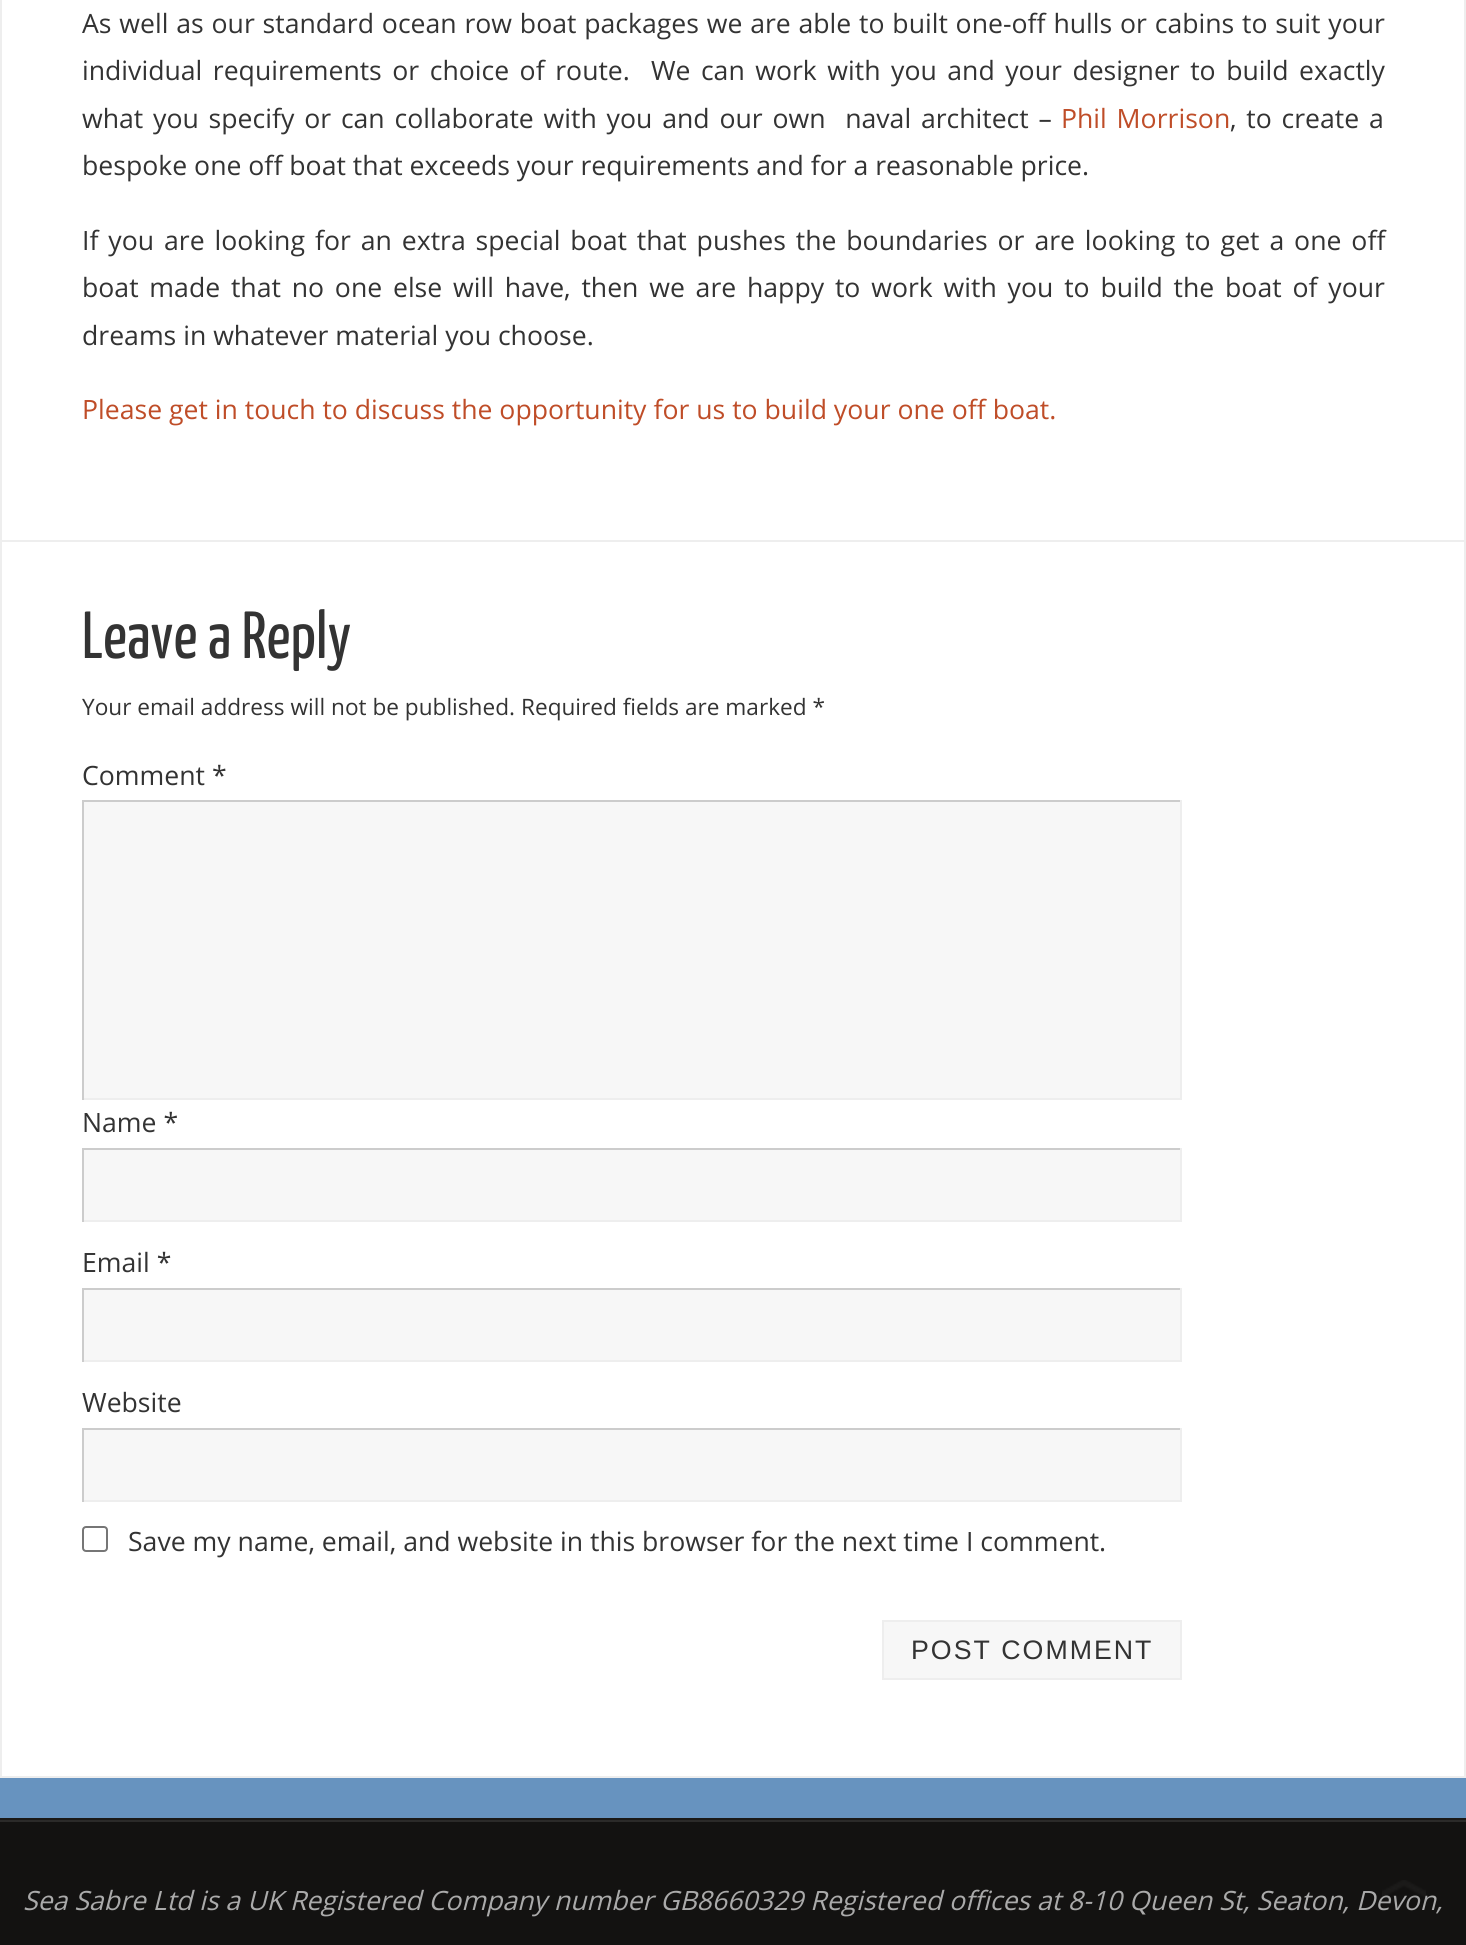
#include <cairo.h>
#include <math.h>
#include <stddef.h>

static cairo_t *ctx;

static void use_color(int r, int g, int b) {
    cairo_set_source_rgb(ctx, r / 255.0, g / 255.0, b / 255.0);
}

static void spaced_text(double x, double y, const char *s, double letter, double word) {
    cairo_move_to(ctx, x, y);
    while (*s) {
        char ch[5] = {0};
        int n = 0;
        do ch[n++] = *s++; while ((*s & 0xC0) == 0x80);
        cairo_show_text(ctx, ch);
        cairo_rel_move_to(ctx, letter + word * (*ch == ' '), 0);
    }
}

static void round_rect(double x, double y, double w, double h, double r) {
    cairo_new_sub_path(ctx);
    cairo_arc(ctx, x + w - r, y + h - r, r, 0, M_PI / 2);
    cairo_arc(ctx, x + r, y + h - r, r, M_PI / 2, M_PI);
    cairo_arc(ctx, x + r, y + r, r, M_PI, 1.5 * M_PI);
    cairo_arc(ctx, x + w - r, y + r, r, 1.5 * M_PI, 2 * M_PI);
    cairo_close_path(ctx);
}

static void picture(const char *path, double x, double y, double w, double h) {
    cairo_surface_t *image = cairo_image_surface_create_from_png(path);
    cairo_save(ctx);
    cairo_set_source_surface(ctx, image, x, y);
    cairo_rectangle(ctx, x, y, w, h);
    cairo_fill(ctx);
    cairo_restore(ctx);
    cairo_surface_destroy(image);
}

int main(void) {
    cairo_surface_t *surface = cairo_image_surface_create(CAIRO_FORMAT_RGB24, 1466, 1945);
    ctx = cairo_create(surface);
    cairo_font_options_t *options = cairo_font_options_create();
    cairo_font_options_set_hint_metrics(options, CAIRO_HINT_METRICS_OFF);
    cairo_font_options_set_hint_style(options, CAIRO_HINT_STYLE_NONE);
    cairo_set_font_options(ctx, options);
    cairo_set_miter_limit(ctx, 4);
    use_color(103, 147, 191);
    cairo_paint(ctx);
    use_color(255, 255, 255);
    cairo_rectangle(ctx, 1, 541, 1464, 1236);
    cairo_fill_preserve(ctx);
    use_color(238, 238, 238);
    cairo_stroke(ctx);
    use_color(255, 255, 255);
    cairo_rectangle(ctx, 1, -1, 1464, 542);
    cairo_fill_preserve(ctx);
    use_color(238, 238, 238);
    cairo_stroke(ctx);
    cairo_select_font_face(ctx, "Open Sans", CAIRO_FONT_SLANT_NORMAL, CAIRO_FONT_WEIGHT_NORMAL);
    cairo_set_font_size(ctx, 26.6);
    use_color(51, 51, 51);
    spaced_text(82, 33, "As well as our standard ocean row boat packages we are able to built one-off hulls or cabins to suit your", 0, 0.9);
    spaced_text(82, 80, "individual requirements or choice of route.  We can work with you and your designer to build exactly", 0, 3.6);
    spaced_text(82, 128, "what you specify or can collaborate with you and our own  naval architect –", 0, 2.9);
    use_color(191, 77, 40);
    spaced_text(1061, 128, "Phil Morrison", 0, 2.9);
    use_color(51, 51, 51);
    spaced_text(1230, 128, ", to create a", 0, 2.9);
    cairo_move_to(ctx, 82, 175);
    cairo_show_text(ctx, "bespoke one off boat that exceeds your requirements and for a reasonable price.");
    spaced_text(82, 250, "If you are looking for an extra special boat that pushes the boundaries or are looking to get a one off", 0, 3);
    spaced_text(82, 297, "boat made that no one else will have, then we are happy to work with you to build the boat of your", 0, 3.9);
    cairo_move_to(ctx, 82, 345);
    cairo_show_text(ctx, "dreams in whatever material you choose.");
    use_color(191, 77, 40);
    cairo_move_to(ctx, 82, 419);
    cairo_show_text(ctx, "Please get in touch to discuss the opportunity for us to build your one off boat.");
    cairo_select_font_face(ctx, "Yanone Kaffeesatz", CAIRO_FONT_SLANT_NORMAL, CAIRO_FONT_WEIGHT_NORMAL);
    cairo_set_font_size(ctx, 66.5);
    use_color(51, 51, 51);
    cairo_move_to(ctx, 82, 658);
    cairo_show_text(ctx, "Leave a Reply");
    cairo_select_font_face(ctx, "Open Sans", CAIRO_FONT_SLANT_NORMAL, CAIRO_FONT_WEIGHT_NORMAL);
    cairo_set_font_size(ctx, 22.6);
    cairo_move_to(ctx, 82, 715);
    cairo_show_text(ctx, "Your email address will not be published.");
    cairo_move_to(ctx, 521, 715);
    cairo_show_text(ctx, "Required fields are marked *");
    cairo_set_font_size(ctx, 26.6);
    cairo_move_to(ctx, 82, 785);
    cairo_show_text(ctx, "Comment *");
    use_color(247, 247, 247);
    cairo_rectangle(ctx, 84, 802, 1096, 296);
    cairo_fill(ctx);
    use_color(204, 204, 204);
    cairo_rectangle(ctx, 82, 800, 1100, 2);
    cairo_fill(ctx);
    use_color(238, 238, 238);
    cairo_rectangle(ctx, 1180, 800, 2, 300);
    cairo_fill(ctx);
    cairo_rectangle(ctx, 82, 1098, 1100, 2);
    cairo_fill(ctx);
    use_color(204, 204, 204);
    cairo_rectangle(ctx, 82, 800, 2, 300);
    cairo_fill(ctx);
    use_color(51, 51, 51);
    cairo_move_to(ctx, 82, 1132);
    cairo_show_text(ctx, "Name *");
    use_color(247, 247, 247);
    cairo_rectangle(ctx, 84, 1150, 1096, 70);
    cairo_fill(ctx);
    use_color(204, 204, 204);
    cairo_rectangle(ctx, 82, 1148, 1100, 2);
    cairo_fill(ctx);
    use_color(238, 238, 238);
    cairo_rectangle(ctx, 1180, 1148, 2, 74);
    cairo_fill(ctx);
    cairo_rectangle(ctx, 82, 1220, 1100, 2);
    cairo_fill(ctx);
    use_color(204, 204, 204);
    cairo_rectangle(ctx, 82, 1148, 2, 74);
    cairo_fill(ctx);
    use_color(51, 51, 51);
    cairo_move_to(ctx, 82, 1272);
    cairo_show_text(ctx, "Email *");
    use_color(247, 247, 247);
    cairo_rectangle(ctx, 84, 1290, 1096, 70);
    cairo_fill(ctx);
    use_color(204, 204, 204);
    cairo_rectangle(ctx, 82, 1288, 1100, 2);
    cairo_fill(ctx);
    use_color(238, 238, 238);
    cairo_rectangle(ctx, 1180, 1288, 2, 74);
    cairo_fill(ctx);
    cairo_rectangle(ctx, 82, 1360, 1100, 2);
    cairo_fill(ctx);
    use_color(204, 204, 204);
    cairo_rectangle(ctx, 82, 1288, 2, 74);
    cairo_fill(ctx);
    use_color(51, 51, 51);
    cairo_move_to(ctx, 82, 1412);
    cairo_show_text(ctx, "Website");
    use_color(247, 247, 247);
    cairo_rectangle(ctx, 84, 1430, 1096, 70);
    cairo_fill(ctx);
    use_color(204, 204, 204);
    cairo_rectangle(ctx, 82, 1428, 1100, 2);
    cairo_fill(ctx);
    use_color(238, 238, 238);
    cairo_rectangle(ctx, 1180, 1428, 2, 74);
    cairo_fill(ctx);
    cairo_rectangle(ctx, 82, 1500, 1100, 2);
    cairo_fill(ctx);
    use_color(204, 204, 204);
    cairo_rectangle(ctx, 82, 1428, 2, 74);
    cairo_fill(ctx);
    round_rect(83, 1527, 24, 24, 3);
    use_color(118, 118, 118);
    cairo_stroke(ctx);
    use_color(51, 51, 51);
    cairo_move_to(ctx, 128, 1551);
    cairo_show_text(ctx, "Save my name, email, and website in this browser for the next time I comment.");
    use_color(247, 247, 247);
    cairo_rectangle(ctx, 883, 1621, 298, 58);
    cairo_fill_preserve(ctx);
    use_color(238, 238, 238);
    cairo_stroke(ctx);
    cairo_select_font_face(ctx, "Liberation Sans", CAIRO_FONT_SLANT_NORMAL, CAIRO_FONT_WEIGHT_NORMAL);
    cairo_set_font_size(ctx, 26.75);
    use_color(51, 51, 51);
    spaced_text(911, 1659, "POST COMMENT", 2, 0);
    use_color(26, 25, 23);
    cairo_rectangle(ctx, 0, 1818, 1466, 2);
    cairo_fill(ctx);
    use_color(19, 18, 17);
    cairo_rectangle(ctx, 0, 1822, 1466, 123);
    cairo_fill(ctx);
    use_color(43, 42, 41);
    cairo_rectangle(ctx, 0, 1820, 1466, 2);
    cairo_fill(ctx);
    cairo_select_font_face(ctx, "Open Sans", CAIRO_FONT_SLANT_ITALIC, CAIRO_FONT_WEIGHT_NORMAL);
    cairo_set_font_size(ctx, 26.6);
    use_color(170, 170, 170);
    cairo_move_to(ctx, 23, 1910);
    cairo_show_text(ctx, "Sea Sabre Ltd is a UK Registered Company number GB8660329 Registered offices at 8-10 Queen St, Seaton, Devon,");
    picture("img1.png", 1382, 1880, 44, 25);
    cairo_surface_write_to_png(surface, "result.png");
    cairo_font_options_destroy(options);
    cairo_destroy(ctx);
    cairo_surface_destroy(surface);
    return 0;
}
